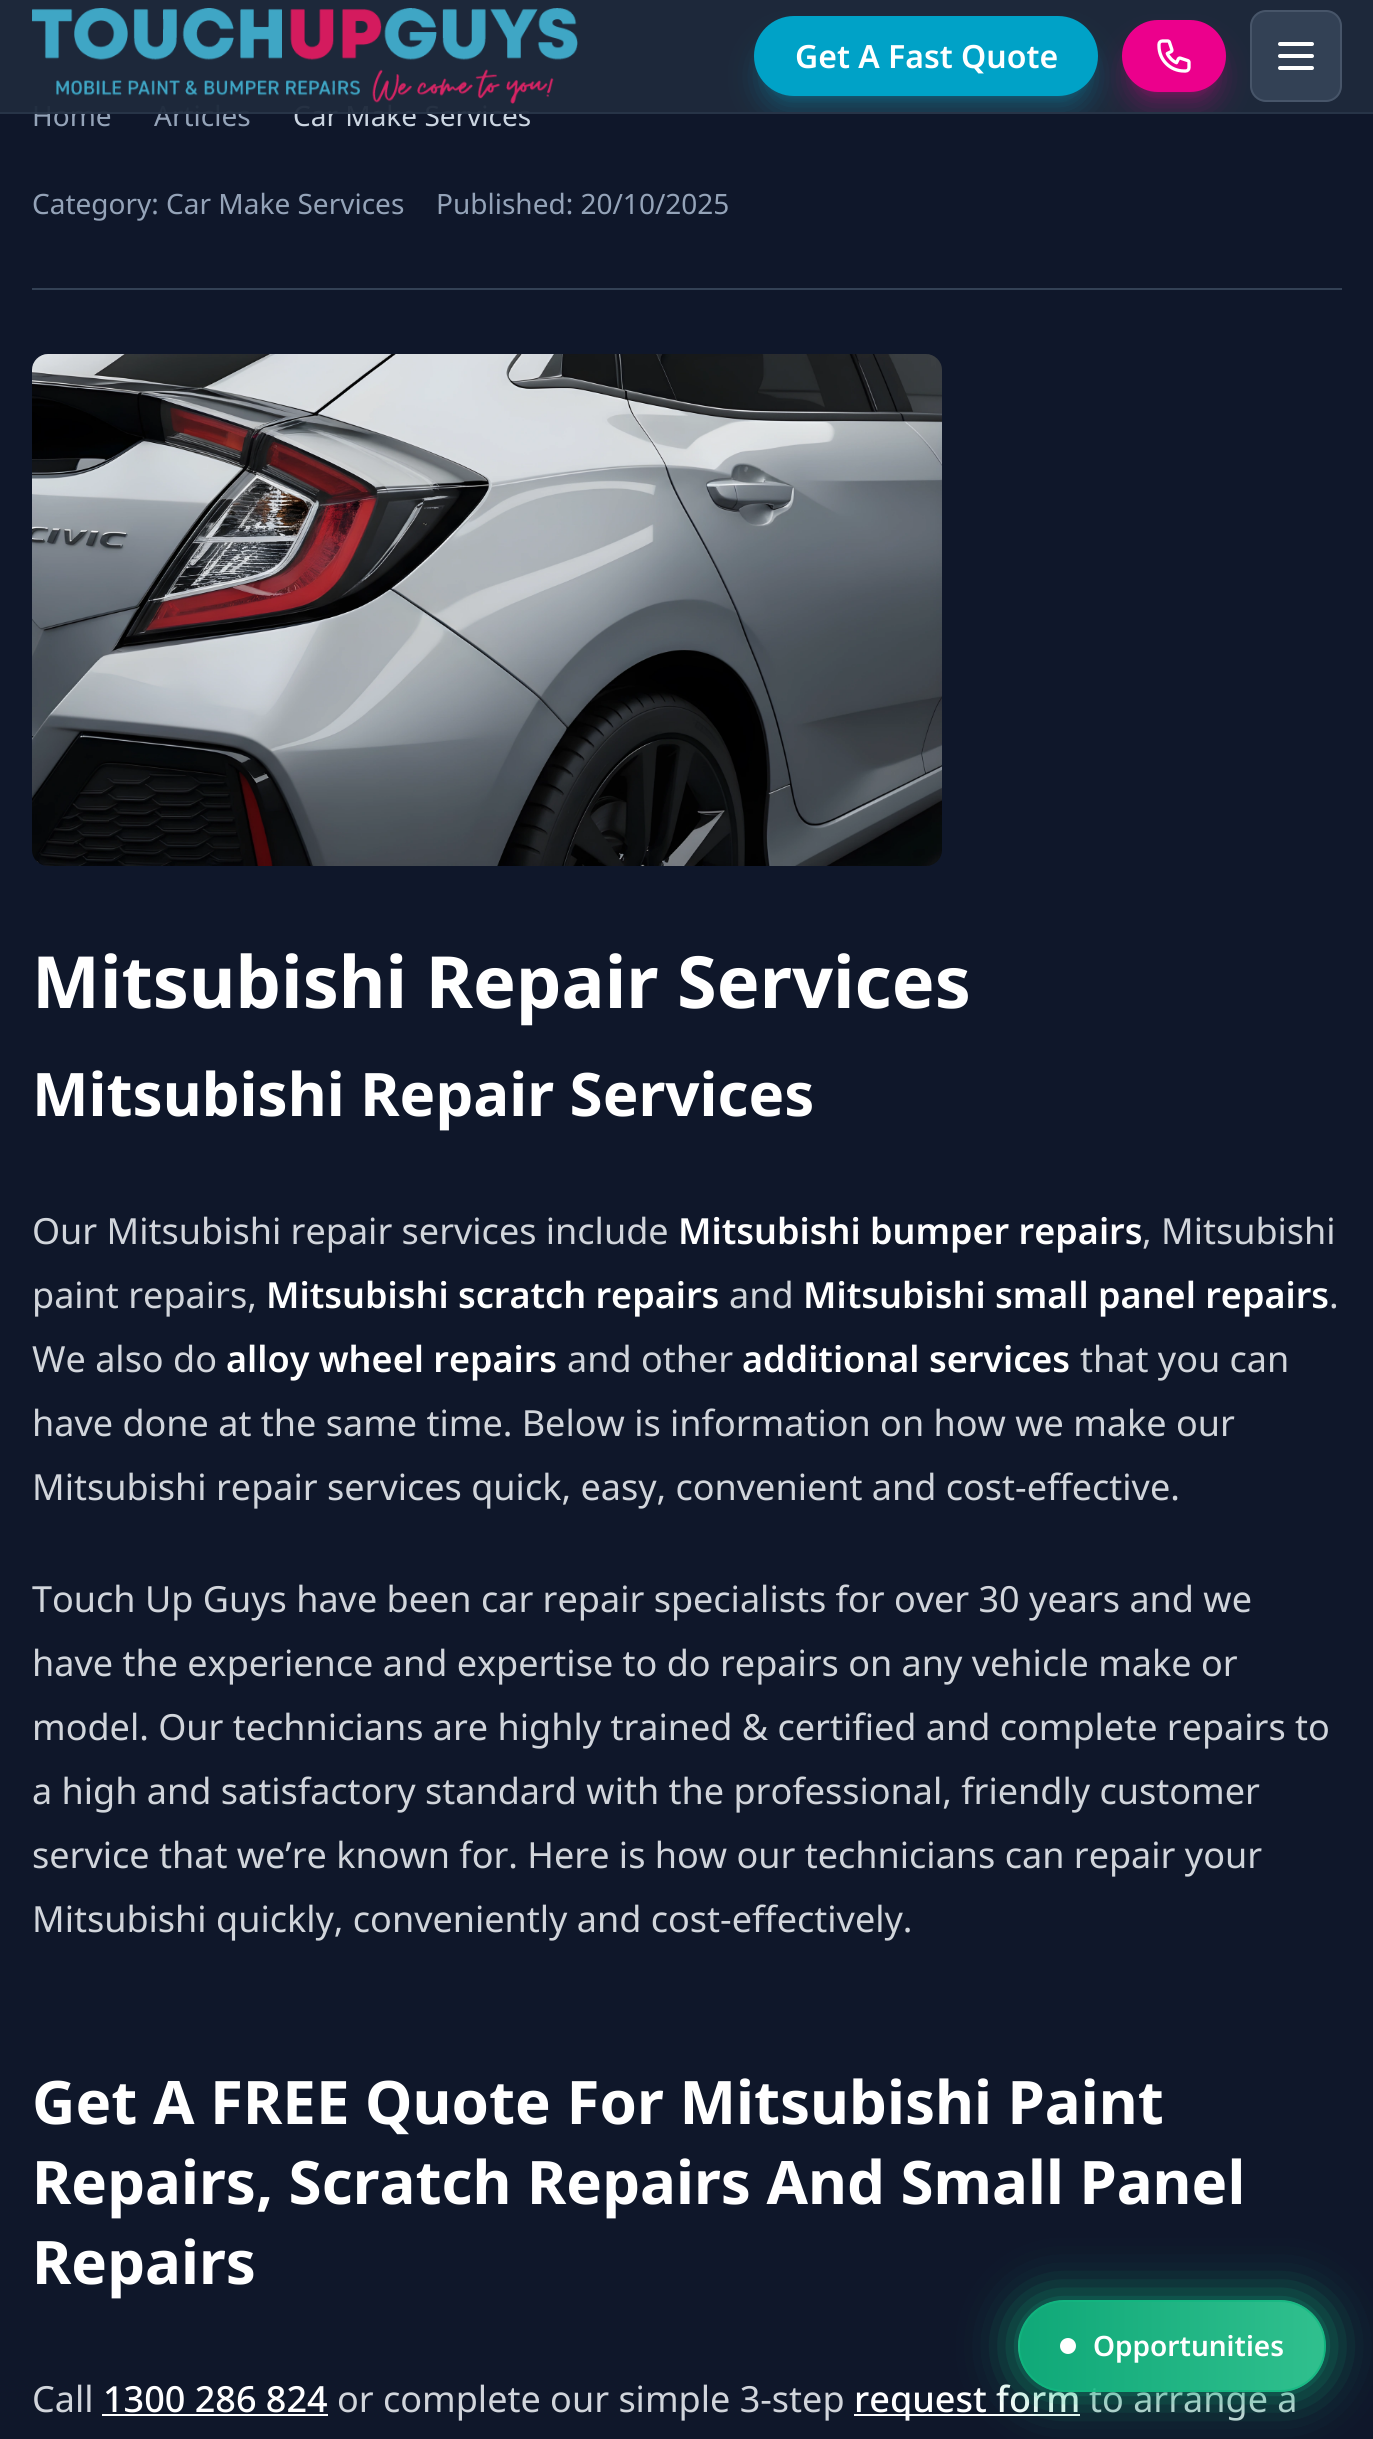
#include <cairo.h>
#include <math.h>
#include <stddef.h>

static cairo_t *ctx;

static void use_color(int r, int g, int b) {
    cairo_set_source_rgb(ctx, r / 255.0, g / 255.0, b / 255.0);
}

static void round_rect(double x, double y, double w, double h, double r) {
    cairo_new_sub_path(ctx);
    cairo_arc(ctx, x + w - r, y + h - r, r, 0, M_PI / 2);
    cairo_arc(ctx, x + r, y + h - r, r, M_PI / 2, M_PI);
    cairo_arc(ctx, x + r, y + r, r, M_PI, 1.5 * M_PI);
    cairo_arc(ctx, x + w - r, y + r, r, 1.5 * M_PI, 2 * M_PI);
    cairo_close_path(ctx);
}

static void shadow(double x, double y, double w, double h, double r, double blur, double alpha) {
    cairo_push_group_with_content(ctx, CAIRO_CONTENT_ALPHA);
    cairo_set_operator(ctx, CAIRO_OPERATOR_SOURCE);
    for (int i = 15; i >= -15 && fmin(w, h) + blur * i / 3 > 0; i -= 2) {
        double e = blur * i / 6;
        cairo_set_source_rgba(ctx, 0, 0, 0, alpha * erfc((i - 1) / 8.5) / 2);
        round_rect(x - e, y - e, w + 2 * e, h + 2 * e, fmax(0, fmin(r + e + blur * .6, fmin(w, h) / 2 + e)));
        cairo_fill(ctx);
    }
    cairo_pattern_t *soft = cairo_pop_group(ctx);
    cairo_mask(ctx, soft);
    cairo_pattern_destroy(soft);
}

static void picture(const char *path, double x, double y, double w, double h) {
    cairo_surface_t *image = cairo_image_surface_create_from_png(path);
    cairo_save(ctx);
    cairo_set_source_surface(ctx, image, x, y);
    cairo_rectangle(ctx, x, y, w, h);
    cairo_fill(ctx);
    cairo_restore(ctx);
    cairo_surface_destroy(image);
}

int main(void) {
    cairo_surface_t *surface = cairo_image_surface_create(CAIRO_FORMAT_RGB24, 1373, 2439);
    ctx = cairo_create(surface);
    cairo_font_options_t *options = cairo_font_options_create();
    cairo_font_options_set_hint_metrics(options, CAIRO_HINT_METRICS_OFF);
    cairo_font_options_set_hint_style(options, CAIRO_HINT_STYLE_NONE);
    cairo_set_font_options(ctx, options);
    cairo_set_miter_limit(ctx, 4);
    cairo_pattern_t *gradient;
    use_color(15, 23, 42);
    cairo_paint(ctx);
    cairo_select_font_face(ctx, "Noto Sans", CAIRO_FONT_SLANT_NORMAL, CAIRO_FONT_WEIGHT_NORMAL);
    cairo_set_font_size(ctx, 28);
    use_color(148, 163, 184);
    cairo_move_to(ctx, 32, 126);
    cairo_show_text(ctx, "Home");
    cairo_move_to(ctx, 154, 126);
    cairo_show_text(ctx, "Articles");
    use_color(203, 213, 225);
    cairo_move_to(ctx, 293, 126);
    cairo_show_text(ctx, "Car Make Services");
    cairo_set_source_rgba(ctx, 0.118, 0.161, 0.231, 0.95);
    cairo_rectangle(ctx, 0, 0, 1373, 114);
    cairo_fill(ctx);
    cairo_set_source_rgba(ctx, 0.2, 0.255, 0.333, 0.5);
    cairo_rectangle(ctx, 0, 112, 1373, 2);
    cairo_fill(ctx);
    picture("img1.png", 32, 8, 546, 96);
    use_color(0, 162, 199);
    shadow(762, 32, 328, 64, 32, 6, 0.3);
    cairo_save(ctx);
    cairo_rectangle(ctx, 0, 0, 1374, 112);
    cairo_clip(ctx);
    shadow(760, 42, 332, 68, 34, 15, 0.3);
    cairo_restore(ctx);
    use_color(0, 162, 199);
    round_rect(754, 16, 344, 80, 40);
    cairo_fill(ctx);
    cairo_select_font_face(ctx, "Noto Sans SemiBold", CAIRO_FONT_SLANT_NORMAL, CAIRO_FONT_WEIGHT_NORMAL);
    cairo_set_font_size(ctx, 32);
    use_color(255, 255, 255);
    cairo_move_to(ctx, 795, 68);
    cairo_show_text(ctx, "Get A Fast Quote");
    use_color(236, 0, 140);
    shadow(1130, 36, 88, 56, 28, 6, 0.3);
    cairo_save(ctx);
    cairo_rectangle(ctx, 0, 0, 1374, 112);
    cairo_clip(ctx);
    shadow(1128, 46, 92, 60, 30, 15, 0.3);
    cairo_restore(ctx);
    use_color(236, 0, 140);
    round_rect(1122, 20, 104, 72, 36);
    cairo_fill(ctx);
    picture("img2.png", 1157, 39, 34, 34);
    use_color(51, 65, 85);
    round_rect(1251, 11, 90, 90, 15);
    cairo_fill_preserve(ctx);
    use_color(71, 85, 105);
    cairo_stroke(ctx);
    cairo_new_path(ctx);
    cairo_move_to(ctx, 1280, 44);
    cairo_line_to(ctx, 1312, 44);
    cairo_move_to(ctx, 1280, 56);
    cairo_line_to(ctx, 1312, 56);
    cairo_move_to(ctx, 1280, 68);
    cairo_line_to(ctx, 1312, 68);
    use_color(255, 255, 255);
    cairo_set_line_width(ctx, 4);
    cairo_set_line_cap(ctx, CAIRO_LINE_CAP_ROUND);
    cairo_set_line_join(ctx, CAIRO_LINE_JOIN_ROUND);
    cairo_stroke(ctx);
    use_color(51, 65, 85);
    cairo_rectangle(ctx, 32, 288, 1310, 2);
    cairo_fill(ctx);
    cairo_select_font_face(ctx, "Noto Sans", CAIRO_FONT_SLANT_NORMAL, CAIRO_FONT_WEIGHT_NORMAL);
    cairo_set_font_size(ctx, 28);
    use_color(148, 163, 184);
    cairo_move_to(ctx, 32, 214);
    cairo_show_text(ctx, "Category: Car Make Services");
    cairo_move_to(ctx, 436, 214);
    cairo_show_text(ctx, "Published: 20/10/2025");
    picture("img3.png", 32, 354, 910, 512);
    cairo_select_font_face(ctx, "Noto Sans", CAIRO_FONT_SLANT_NORMAL, CAIRO_FONT_WEIGHT_BOLD);
    cairo_set_font_size(ctx, 72);
    use_color(255, 255, 255);
    cairo_move_to(ctx, 32, 1008);
    cairo_show_text(ctx, "Mitsubishi Repair Services");
    cairo_set_font_size(ctx, 60);
    cairo_move_to(ctx, 32, 1116);
    cairo_show_text(ctx, "Mitsubishi Repair Services");
    cairo_select_font_face(ctx, "Noto Sans", CAIRO_FONT_SLANT_NORMAL, CAIRO_FONT_WEIGHT_NORMAL);
    cairo_set_font_size(ctx, 36);
    use_color(209, 213, 219);
    cairo_move_to(ctx, 32, 1244);
    cairo_show_text(ctx, "Our Mitsubishi repair services include");
    cairo_select_font_face(ctx, "Noto Sans SemiBold", CAIRO_FONT_SLANT_NORMAL, CAIRO_FONT_WEIGHT_NORMAL);
    use_color(255, 255, 255);
    cairo_move_to(ctx, 678, 1244);
    cairo_show_text(ctx, "Mitsubishi bumper repairs");
    cairo_select_font_face(ctx, "Noto Sans", CAIRO_FONT_SLANT_NORMAL, CAIRO_FONT_WEIGHT_NORMAL);
    use_color(209, 213, 219);
    cairo_move_to(ctx, 1142, 1244);
    cairo_show_text(ctx, ", Mitsubishi");
    cairo_move_to(ctx, 32, 1308);
    cairo_show_text(ctx, "paint repairs,");
    cairo_select_font_face(ctx, "Noto Sans SemiBold", CAIRO_FONT_SLANT_NORMAL, CAIRO_FONT_WEIGHT_NORMAL);
    use_color(255, 255, 255);
    cairo_move_to(ctx, 266, 1308);
    cairo_show_text(ctx, "Mitsubishi scratch repairs");
    cairo_select_font_face(ctx, "Noto Sans", CAIRO_FONT_SLANT_NORMAL, CAIRO_FONT_WEIGHT_NORMAL);
    use_color(209, 213, 219);
    cairo_move_to(ctx, 729, 1308);
    cairo_show_text(ctx, "and");
    cairo_select_font_face(ctx, "Noto Sans SemiBold", CAIRO_FONT_SLANT_NORMAL, CAIRO_FONT_WEIGHT_NORMAL);
    use_color(255, 255, 255);
    cairo_move_to(ctx, 803, 1308);
    cairo_show_text(ctx, "Mitsubishi small panel repairs");
    cairo_select_font_face(ctx, "Noto Sans", CAIRO_FONT_SLANT_NORMAL, CAIRO_FONT_WEIGHT_NORMAL);
    use_color(209, 213, 219);
    cairo_move_to(ctx, 1329, 1308);
    cairo_show_text(ctx, ".");
    cairo_move_to(ctx, 32, 1372);
    cairo_show_text(ctx, "We also do");
    cairo_select_font_face(ctx, "Noto Sans SemiBold", CAIRO_FONT_SLANT_NORMAL, CAIRO_FONT_WEIGHT_NORMAL);
    use_color(255, 255, 255);
    cairo_move_to(ctx, 226, 1372);
    cairo_show_text(ctx, "alloy wheel repairs");
    cairo_select_font_face(ctx, "Noto Sans", CAIRO_FONT_SLANT_NORMAL, CAIRO_FONT_WEIGHT_NORMAL);
    use_color(209, 213, 219);
    cairo_move_to(ctx, 567, 1372);
    cairo_show_text(ctx, "and other");
    cairo_select_font_face(ctx, "Noto Sans SemiBold", CAIRO_FONT_SLANT_NORMAL, CAIRO_FONT_WEIGHT_NORMAL);
    use_color(255, 255, 255);
    cairo_move_to(ctx, 742, 1372);
    cairo_show_text(ctx, "additional services");
    cairo_select_font_face(ctx, "Noto Sans", CAIRO_FONT_SLANT_NORMAL, CAIRO_FONT_WEIGHT_NORMAL);
    use_color(209, 213, 219);
    cairo_move_to(ctx, 1080, 1372);
    cairo_show_text(ctx, "that you can");
    cairo_move_to(ctx, 32, 1436);
    cairo_show_text(ctx, "have done at the same time. Below is information on how we make our");
    cairo_move_to(ctx, 32, 1500);
    cairo_show_text(ctx, "Mitsubishi repair services quick, easy, convenient and cost-effective.");
    cairo_move_to(ctx, 32, 1612);
    cairo_show_text(ctx, "Touch Up Guys have been car repair specialists for over 30 years and we");
    cairo_move_to(ctx, 32, 1676);
    cairo_show_text(ctx, "have the experience and expertise to do repairs on any vehicle make or");
    cairo_move_to(ctx, 32, 1740);
    cairo_show_text(ctx, "model. Our technicians are highly trained & certified and complete repairs to");
    cairo_move_to(ctx, 32, 1804);
    cairo_show_text(ctx, "a high and satisfactory standard with the professional, friendly customer");
    cairo_move_to(ctx, 32, 1868);
    cairo_show_text(ctx, "service that we’re known for. Here is how our technicians can repair your");
    cairo_move_to(ctx, 32, 1932);
    cairo_show_text(ctx, "Mitsubishi quickly, conveniently and cost-effectively.");
    cairo_select_font_face(ctx, "Noto Sans", CAIRO_FONT_SLANT_NORMAL, CAIRO_FONT_WEIGHT_BOLD);
    cairo_set_font_size(ctx, 60);
    use_color(255, 255, 255);
    cairo_move_to(ctx, 32, 2124);
    cairo_show_text(ctx, "Get A FREE Quote For Mitsubishi Paint");
    cairo_move_to(ctx, 32, 2204);
    cairo_show_text(ctx, "Repairs, Scratch Repairs And Small Panel");
    cairo_move_to(ctx, 32, 2284);
    cairo_show_text(ctx, "Repairs");
    cairo_select_font_face(ctx, "Noto Sans", CAIRO_FONT_SLANT_NORMAL, CAIRO_FONT_WEIGHT_NORMAL);
    cairo_set_font_size(ctx, 36);
    use_color(209, 213, 219);
    cairo_move_to(ctx, 32, 2412);
    cairo_show_text(ctx, "Call");
    cairo_select_font_face(ctx, "Noto Sans Medium", CAIRO_FONT_SLANT_NORMAL, CAIRO_FONT_WEIGHT_NORMAL);
    use_color(255, 255, 255);
    cairo_move_to(ctx, 103, 2412);
    cairo_show_text(ctx, "1300 286 824");
    cairo_rectangle(ctx, 102, 2414, 226, 2);
    cairo_fill(ctx);
    cairo_select_font_face(ctx, "Noto Sans", CAIRO_FONT_SLANT_NORMAL, CAIRO_FONT_WEIGHT_NORMAL);
    use_color(209, 213, 219);
    cairo_move_to(ctx, 337, 2412);
    cairo_show_text(ctx, "or complete our simple 3-step");
    use_color(255, 255, 255);
    cairo_rectangle(ctx, 854, 2414, 226, 2);
    cairo_fill(ctx);
    cairo_select_font_face(ctx, "Noto Sans Medium", CAIRO_FONT_SLANT_NORMAL, CAIRO_FONT_WEIGHT_NORMAL);
    cairo_move_to(ctx, 854, 2412);
    cairo_show_text(ctx, "request form");
    cairo_select_font_face(ctx, "Noto Sans", CAIRO_FONT_SLANT_NORMAL, CAIRO_FONT_WEIGHT_NORMAL);
    use_color(209, 213, 219);
    cairo_move_to(ctx, 1089, 2412);
    cairo_show_text(ctx, "to arrange a");
    cairo_save(ctx);
    cairo_set_fill_rule(ctx, CAIRO_FILL_RULE_EVEN_ODD);
    cairo_new_path(ctx);
    cairo_move_to(ctx, 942, 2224);
    cairo_line_to(ctx, 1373, 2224);
    cairo_line_to(ctx, 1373, 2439);
    cairo_line_to(ctx, 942, 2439);
    cairo_close_path(ctx);
    cairo_move_to(ctx, 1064, 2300);
    cairo_line_to(ctx, 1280, 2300);
    cairo_curve_to(ctx, 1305.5, 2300, 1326, 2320.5, 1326, 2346);
    cairo_curve_to(ctx, 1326, 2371.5, 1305.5, 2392, 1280, 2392);
    cairo_line_to(ctx, 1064, 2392);
    cairo_curve_to(ctx, 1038.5, 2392, 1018, 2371.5, 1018, 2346);
    cairo_curve_to(ctx, 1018, 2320.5, 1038.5, 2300, 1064, 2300);
    cairo_close_path(ctx);
    cairo_clip(ctx);
    use_color(16, 185, 129);
    shadow(1018, 2300, 308, 92, 46, 25, 0.75);
    cairo_restore(ctx);
    cairo_save(ctx);
    round_rect(1018, 2300, 308, 92, 46);
    cairo_clip(ctx);
    gradient = cairo_pattern_create_linear(716, 2346, 1020, 2346);
    cairo_pattern_add_color_stop_rgba(gradient, 0, 0.063, 0.725, 0.506, 0.9);
    cairo_pattern_add_color_stop_rgba(gradient, 1, 0.204, 0.827, 0.6, 0.9);
    cairo_set_source(ctx, gradient);
    cairo_pattern_destroy(gradient);
    cairo_rectangle(ctx, 1018, 2332, 2, 28);
    cairo_fill(ctx);
    gradient = cairo_pattern_create_linear(1020, 2346, 1324, 2346);
    cairo_pattern_add_color_stop_rgba(gradient, 0, 0.063, 0.725, 0.506, 0.9);
    cairo_pattern_add_color_stop_rgba(gradient, 1, 0.204, 0.827, 0.6, 0.9);
    cairo_set_source(ctx, gradient);
    cairo_pattern_destroy(gradient);
    cairo_rectangle(ctx, 1020, 2300, 304, 92);
    cairo_fill(ctx);
    gradient = cairo_pattern_create_linear(1324, 2346, 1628, 2346);
    cairo_pattern_add_color_stop_rgba(gradient, 0, 0.063, 0.725, 0.506, 0.9);
    cairo_pattern_add_color_stop_rgba(gradient, 1, 0.204, 0.827, 0.6, 0.9);
    cairo_set_source(ctx, gradient);
    cairo_pattern_destroy(gradient);
    cairo_rectangle(ctx, 1324, 2333, 2, 26);
    cairo_fill(ctx);
    cairo_restore(ctx);
    round_rect(1019, 2301, 306, 90, 45);
    cairo_set_source_rgba(ctx, 0.063, 0.725, 0.506, 0.7);
    cairo_set_line_width(ctx, 2);
    cairo_set_line_cap(ctx, CAIRO_LINE_CAP_BUTT);
    cairo_set_line_join(ctx, CAIRO_LINE_JOIN_MITER);
    cairo_stroke(ctx);
    use_color(255, 255, 255);
    cairo_arc(ctx, 1068, 2346, 8, 0, 2 * M_PI);
    cairo_fill(ctx);
    cairo_select_font_face(ctx, "Noto Sans SemiBold", CAIRO_FONT_SLANT_NORMAL, CAIRO_FONT_WEIGHT_NORMAL);
    cairo_set_font_size(ctx, 28);
    cairo_move_to(ctx, 1093, 2356);
    cairo_show_text(ctx, "Opportunities");
    cairo_surface_write_to_png(surface, "result.png");
    cairo_font_options_destroy(options);
    cairo_destroy(ctx);
    cairo_surface_destroy(surface);
    return 0;
}
